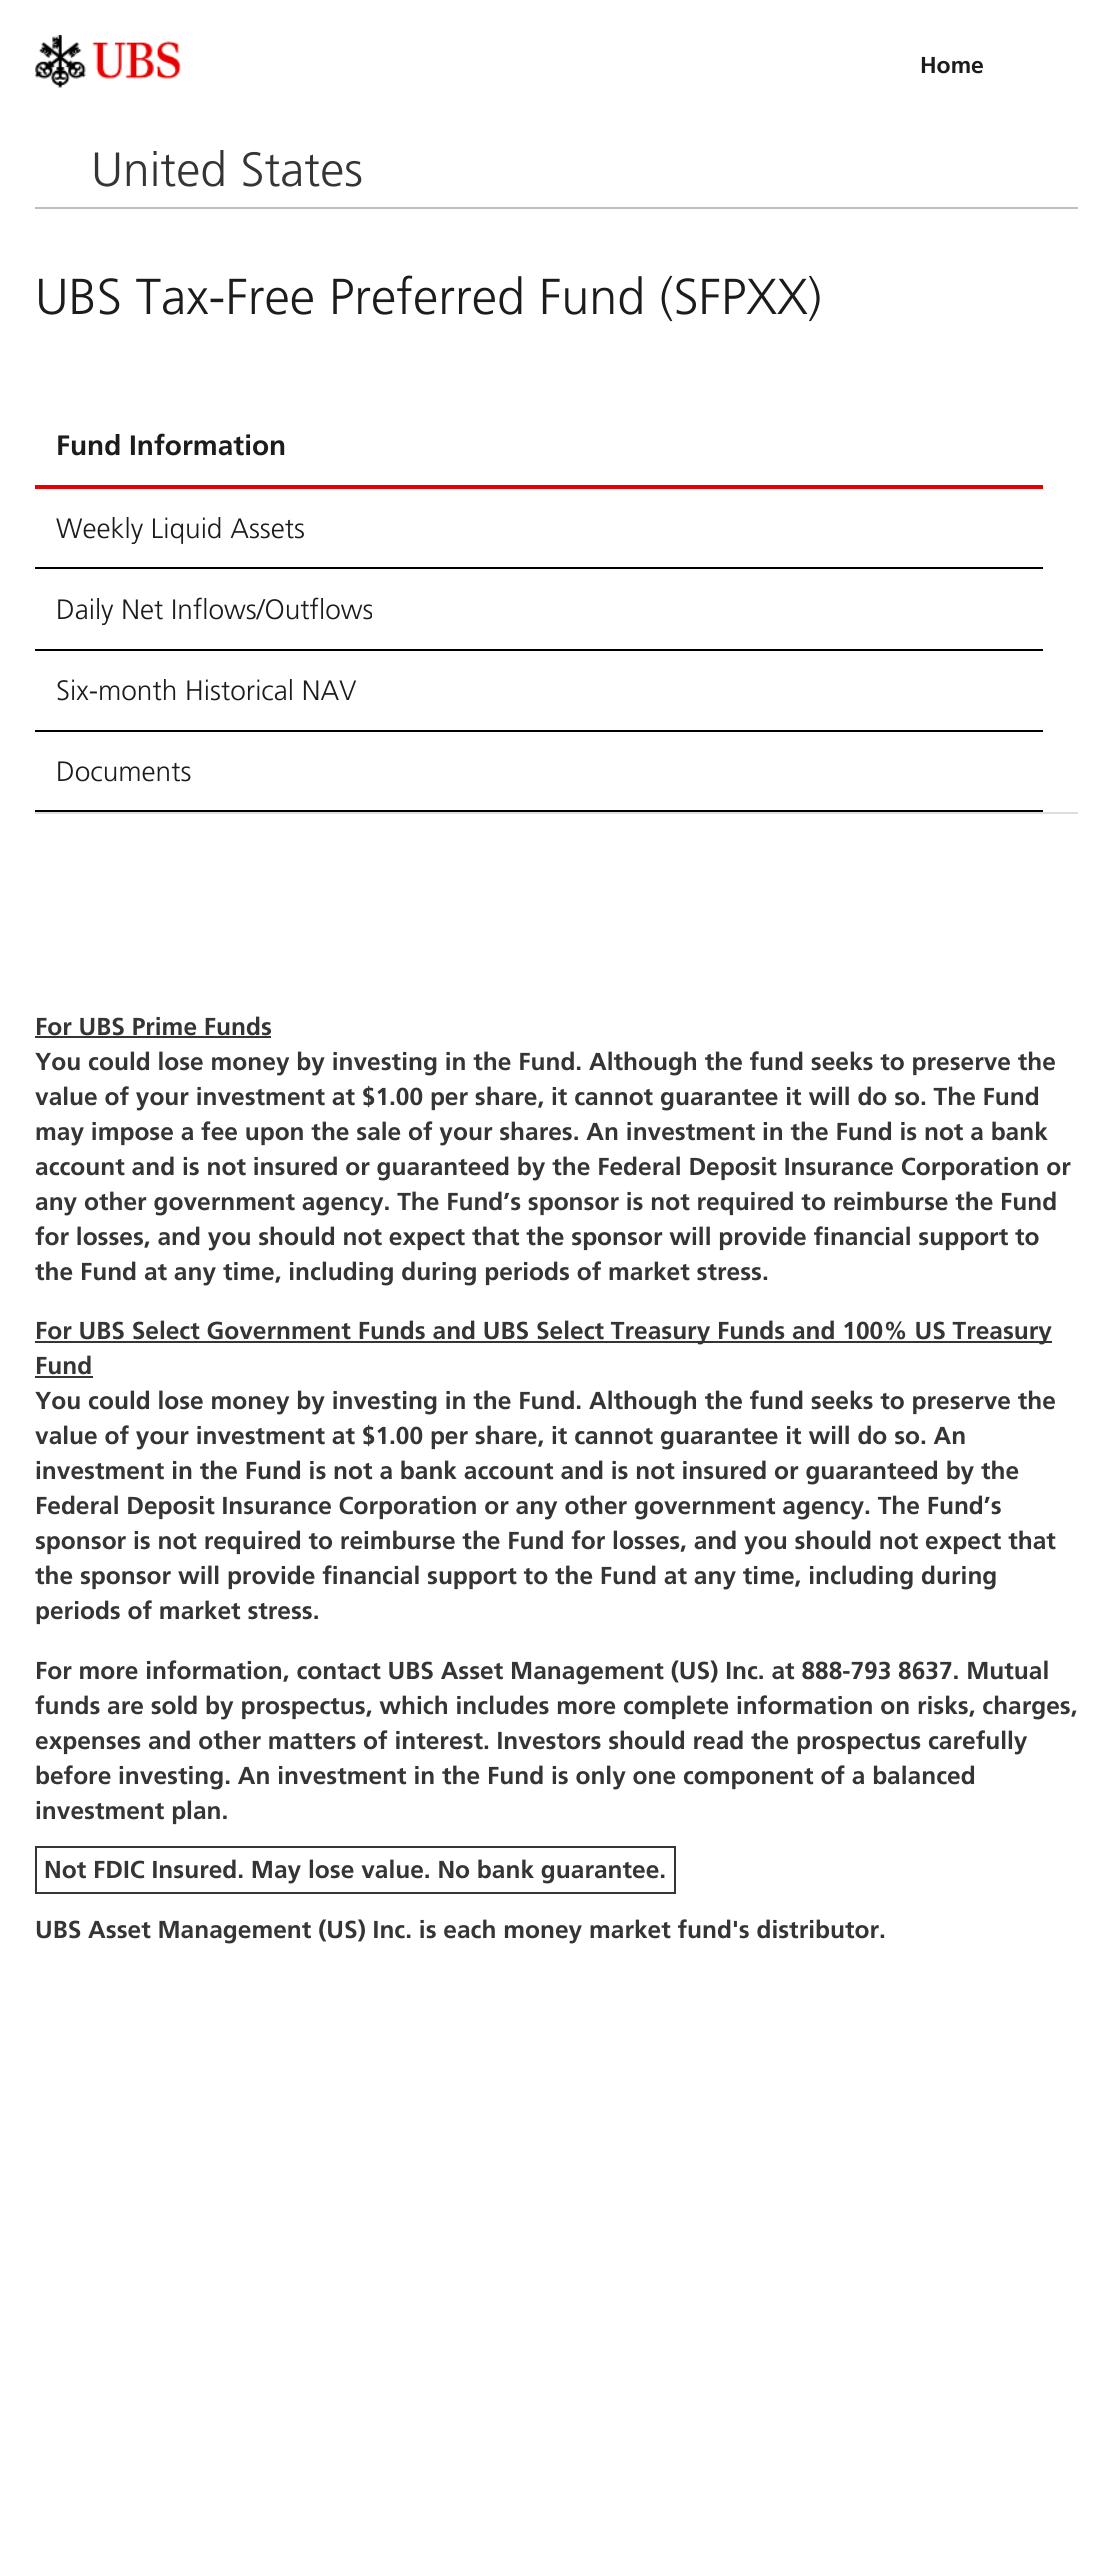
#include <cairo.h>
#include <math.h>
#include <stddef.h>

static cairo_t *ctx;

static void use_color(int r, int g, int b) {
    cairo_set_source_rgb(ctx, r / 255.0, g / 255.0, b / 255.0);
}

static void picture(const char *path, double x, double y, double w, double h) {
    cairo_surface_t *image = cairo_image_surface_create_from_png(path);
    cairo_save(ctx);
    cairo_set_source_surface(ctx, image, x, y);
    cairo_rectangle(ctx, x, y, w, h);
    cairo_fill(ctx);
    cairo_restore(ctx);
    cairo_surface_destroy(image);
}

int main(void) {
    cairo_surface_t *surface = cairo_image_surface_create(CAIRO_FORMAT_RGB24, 1112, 2564);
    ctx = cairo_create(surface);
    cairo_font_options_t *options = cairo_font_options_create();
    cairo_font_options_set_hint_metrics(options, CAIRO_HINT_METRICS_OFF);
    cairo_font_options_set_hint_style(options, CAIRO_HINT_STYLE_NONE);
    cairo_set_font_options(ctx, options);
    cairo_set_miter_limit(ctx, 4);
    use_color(255, 255, 255);
    cairo_paint(ctx);
    picture("img1.png", 35, 35, 146, 53);
    cairo_select_font_face(ctx, "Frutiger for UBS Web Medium", CAIRO_FONT_SLANT_NORMAL, CAIRO_FONT_WEIGHT_NORMAL);
    cairo_set_font_size(ctx, 23);
    use_color(28, 28, 28);
    cairo_move_to(ctx, 920, 73);
    cairo_show_text(ctx, "Home");
    use_color(190, 190, 190);
    cairo_rectangle(ctx, 35, 207, 1043, 2);
    cairo_fill(ctx);
    cairo_select_font_face(ctx, "Frutiger Light", CAIRO_FONT_SLANT_NORMAL, CAIRO_FONT_WEIGHT_NORMAL);
    cairo_set_font_size(ctx, 48);
    use_color(53, 53, 53);
    cairo_move_to(ctx, 91, 186);
    cairo_show_text(ctx, "United States");
    cairo_select_font_face(ctx, "Frutiger for UBS Web Light", CAIRO_FONT_SLANT_NORMAL, CAIRO_FONT_WEIGHT_NORMAL);
    cairo_set_font_size(ctx, 50.4);
    use_color(28, 28, 28);
    cairo_move_to(ctx, 35, 314);
    cairo_show_text(ctx, "UBS Tax-Free Preferred Fund (SFPXX)");
    use_color(230, 0, 0);
    cairo_rectangle(ctx, 35, 485, 1008, 4);
    cairo_fill(ctx);
    cairo_select_font_face(ctx, "Frutiger for UBS Web Medium", CAIRO_FONT_SLANT_NORMAL, CAIRO_FONT_WEIGHT_NORMAL);
    cairo_set_font_size(ctx, 28);
    use_color(28, 28, 28);
    cairo_move_to(ctx, 56, 455);
    cairo_show_text(ctx, "Fund Information");
    use_color(0, 0, 0);
    cairo_rectangle(ctx, 35, 567, 1008, 2);
    cairo_fill(ctx);
    cairo_select_font_face(ctx, "Frutiger for UBS Web Light", CAIRO_FONT_SLANT_NORMAL, CAIRO_FONT_WEIGHT_NORMAL);
    use_color(28, 28, 28);
    cairo_move_to(ctx, 56, 538);
    cairo_show_text(ctx, "Weekly Liquid Assets");
    use_color(0, 0, 0);
    cairo_rectangle(ctx, 35, 649, 1008, 2);
    cairo_fill(ctx);
    use_color(28, 28, 28);
    cairo_move_to(ctx, 56, 619);
    cairo_show_text(ctx, "Daily Net Inflows/Outflows");
    use_color(0, 0, 0);
    cairo_rectangle(ctx, 35, 730, 1008, 2);
    cairo_fill(ctx);
    use_color(28, 28, 28);
    cairo_move_to(ctx, 56, 700);
    cairo_show_text(ctx, "Six-month Historical NAV");
    use_color(0, 0, 0);
    cairo_rectangle(ctx, 35, 810, 1008, 2);
    cairo_fill(ctx);
    use_color(28, 28, 28);
    cairo_move_to(ctx, 56, 781);
    cairo_show_text(ctx, "Documents");
    use_color(222, 222, 222);
    cairo_rectangle(ctx, 35, 812, 1043, 2);
    cairo_fill(ctx);
    cairo_select_font_face(ctx, "Frutiger for UBS Web Medium", CAIRO_FONT_SLANT_NORMAL, CAIRO_FONT_WEIGHT_NORMAL);
    cairo_set_font_size(ctx, 24.5);
    use_color(53, 53, 53);
    cairo_move_to(ctx, 35, 1035);
    cairo_show_text(ctx, "For UBS Prime Funds");
    cairo_rectangle(ctx, 35, 1036, 236, 2);
    cairo_fill(ctx);
    cairo_move_to(ctx, 35, 1070);
    cairo_show_text(ctx, "You could lose money by investing in the Fund. Although the fund seeks to preserve the");
    cairo_move_to(ctx, 35, 1105);
    cairo_show_text(ctx, "value of your investment at $1.00 per share, it cannot guarantee it will do so. The Fund");
    cairo_move_to(ctx, 35, 1140);
    cairo_show_text(ctx, "may impose a fee upon the sale of your shares. An investment in the Fund is not a bank");
    cairo_move_to(ctx, 35, 1175);
    cairo_show_text(ctx, "account and is not insured or guaranteed by the Federal Deposit Insurance Corporation or");
    cairo_move_to(ctx, 35, 1210);
    cairo_show_text(ctx, "any other government agency. The Fund’s sponsor is not required to reimburse the Fund");
    cairo_move_to(ctx, 35, 1245);
    cairo_show_text(ctx, "for losses, and you should not expect that the sponsor will provide financial support to");
    cairo_move_to(ctx, 35, 1280);
    cairo_show_text(ctx, "the Fund at any time, including during periods of market stress.");
    cairo_rectangle(ctx, 35, 1341, 1017, 2);
    cairo_fill(ctx);
    cairo_move_to(ctx, 35, 1339);
    cairo_show_text(ctx, "For UBS Select Government Funds and UBS Select Treasury Funds and 100% US Treasury");
    cairo_move_to(ctx, 35, 1374);
    cairo_show_text(ctx, "Fund");
    cairo_rectangle(ctx, 35, 1376, 58, 2);
    cairo_fill(ctx);
    cairo_move_to(ctx, 35, 1409);
    cairo_show_text(ctx, "You could lose money by investing in the Fund. Although the fund seeks to preserve the");
    cairo_move_to(ctx, 35, 1444);
    cairo_show_text(ctx, "value of your investment at $1.00 per share, it cannot guarantee it will do so. An");
    cairo_move_to(ctx, 35, 1479);
    cairo_show_text(ctx, "investment in the Fund is not a bank account and is not insured or guaranteed by the");
    cairo_move_to(ctx, 35, 1514);
    cairo_show_text(ctx, "Federal Deposit Insurance Corporation or any other government agency. The Fund’s");
    cairo_move_to(ctx, 35, 1549);
    cairo_show_text(ctx, "sponsor is not required to reimburse the Fund for losses, and you should not expect that");
    cairo_move_to(ctx, 35, 1584);
    cairo_show_text(ctx, "the sponsor will provide financial support to the Fund at any time, including during");
    cairo_move_to(ctx, 35, 1619);
    cairo_show_text(ctx, "periods of market stress.");
    cairo_move_to(ctx, 35, 1679);
    cairo_show_text(ctx, "For more information, contact UBS Asset Management (US) Inc. at 888-793 8637. Mutual");
    cairo_move_to(ctx, 35, 1714);
    cairo_show_text(ctx, "funds are sold by prospectus, which includes more complete information on risks, charges,");
    cairo_move_to(ctx, 35, 1749);
    cairo_show_text(ctx, "expenses and other matters of interest. Investors should read the prospectus carefully");
    cairo_move_to(ctx, 35, 1784);
    cairo_show_text(ctx, "before investing. An investment in the Fund is only one component of a balanced");
    cairo_move_to(ctx, 35, 1819);
    cairo_show_text(ctx, "investment plan.");
    cairo_rectangle(ctx, 36, 1847, 639, 46);
    cairo_stroke(ctx);
    cairo_move_to(ctx, 44, 1878);
    cairo_show_text(ctx, "Not FDIC Insured. May lose value. No bank guarantee.");
    cairo_move_to(ctx, 35, 1938);
    cairo_show_text(ctx, "UBS Asset Management (US) Inc. is each money market fund's distributor.");
    cairo_surface_write_to_png(surface, "result.png");
    cairo_font_options_destroy(options);
    cairo_destroy(ctx);
    cairo_surface_destroy(surface);
    return 0;
}
